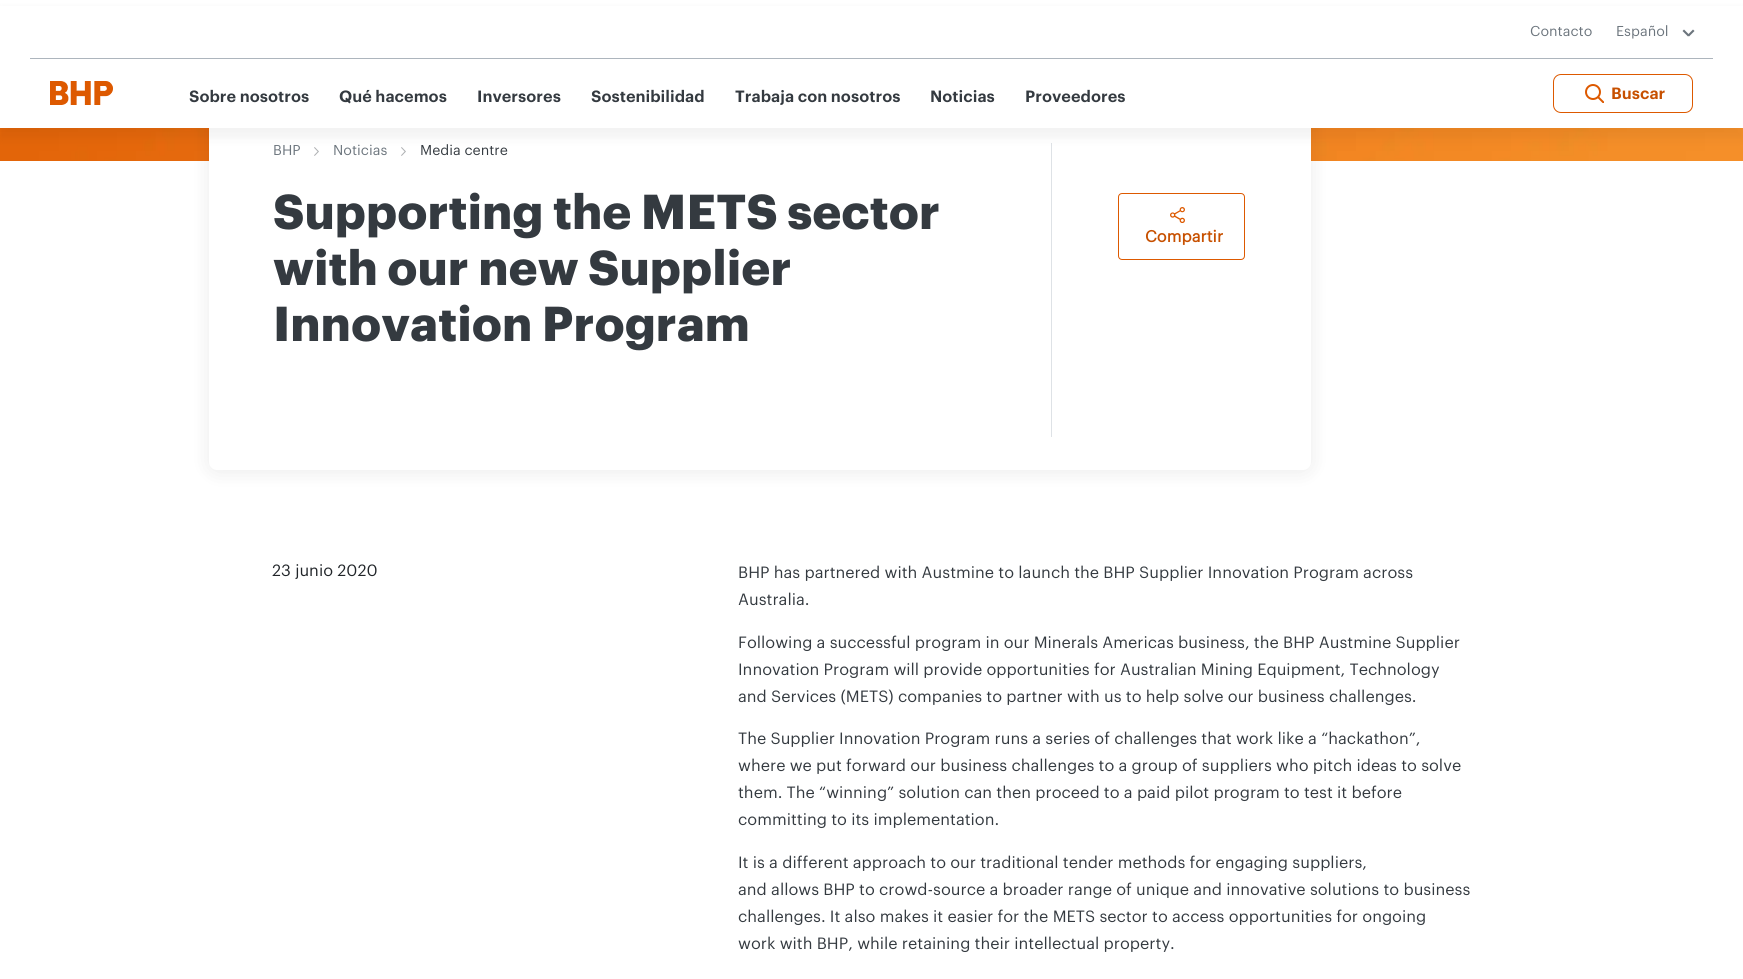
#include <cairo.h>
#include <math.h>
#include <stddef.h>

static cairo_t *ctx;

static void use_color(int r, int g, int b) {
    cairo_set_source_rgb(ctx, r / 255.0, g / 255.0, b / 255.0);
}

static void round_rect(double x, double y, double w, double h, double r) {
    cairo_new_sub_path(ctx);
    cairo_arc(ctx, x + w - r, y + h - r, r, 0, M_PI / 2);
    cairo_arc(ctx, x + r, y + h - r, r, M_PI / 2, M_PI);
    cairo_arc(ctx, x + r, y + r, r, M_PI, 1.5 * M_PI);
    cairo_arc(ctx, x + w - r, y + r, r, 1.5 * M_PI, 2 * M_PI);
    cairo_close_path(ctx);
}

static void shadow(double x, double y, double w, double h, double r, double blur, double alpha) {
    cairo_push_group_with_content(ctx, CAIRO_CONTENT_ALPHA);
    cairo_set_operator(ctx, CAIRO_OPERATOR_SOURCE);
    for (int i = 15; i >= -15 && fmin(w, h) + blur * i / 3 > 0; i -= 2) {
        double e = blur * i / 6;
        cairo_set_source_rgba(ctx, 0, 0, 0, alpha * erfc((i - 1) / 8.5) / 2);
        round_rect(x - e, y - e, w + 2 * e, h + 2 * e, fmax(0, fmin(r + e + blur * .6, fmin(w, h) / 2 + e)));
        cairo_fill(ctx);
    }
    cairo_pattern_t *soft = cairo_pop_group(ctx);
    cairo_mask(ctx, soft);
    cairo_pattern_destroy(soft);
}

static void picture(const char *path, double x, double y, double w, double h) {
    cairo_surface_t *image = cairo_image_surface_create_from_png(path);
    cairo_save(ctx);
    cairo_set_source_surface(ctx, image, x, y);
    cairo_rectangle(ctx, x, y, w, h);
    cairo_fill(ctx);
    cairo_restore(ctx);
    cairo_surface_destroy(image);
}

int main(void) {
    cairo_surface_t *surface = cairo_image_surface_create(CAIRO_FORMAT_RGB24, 1743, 979);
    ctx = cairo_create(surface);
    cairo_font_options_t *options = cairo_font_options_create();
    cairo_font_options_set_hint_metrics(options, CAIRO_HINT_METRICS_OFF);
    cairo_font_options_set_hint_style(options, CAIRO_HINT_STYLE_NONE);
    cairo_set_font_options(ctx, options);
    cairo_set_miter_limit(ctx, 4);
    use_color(255, 255, 255);
    cairo_paint(ctx);
    picture("img3.png", 0, 128, 1743, 33);
    use_color(0, 0, 0);
    shadow(209, 103, 1102, 369, 8, 10, 0.08);
    use_color(255, 255, 255);
    round_rect(209, 101, 1102, 369, 8);
    cairo_fill(ctx);
    picture("img4.png", 314, 147, 5, 9);
    picture("img4.png", 401, 147, 5, 9);
    use_color(222, 226, 230);
    cairo_rectangle(ctx, 1051, 143, 1, 294);
    cairo_fill(ctx);
    use_color(0, 0, 0);
    shadow(0, 10, 1743, 128, 0, 5, 0.05);
    use_color(255, 255, 255);
    cairo_rectangle(ctx, 0, 6, 1743, 122);
    cairo_fill(ctx);
    cairo_select_font_face(ctx, "Graphik", CAIRO_FONT_SLANT_NORMAL, CAIRO_FONT_WEIGHT_NORMAL);
    cairo_set_font_size(ctx, 14);
    use_color(108, 117, 125);
    cairo_move_to(ctx, 1530, 36);
    cairo_show_text(ctx, "Contacto");
    cairo_move_to(ctx, 1616, 36);
    cairo_show_text(ctx, "Español");
    cairo_new_path(ctx);
    cairo_move_to(ctx, 1682.5, 31);
    cairo_line_to(ctx, 1684, 29.5);
    cairo_line_to(ctx, 1689.5, 35);
    cairo_line_to(ctx, 1688, 36.5);
    cairo_close_path(ctx);
    cairo_fill(ctx);
    cairo_new_path(ctx);
    cairo_move_to(ctx, 1693, 29.5);
    cairo_line_to(ctx, 1694.5, 31);
    cairo_line_to(ctx, 1689, 36.5);
    cairo_line_to(ctx, 1687.5, 35);
    cairo_close_path(ctx);
    cairo_fill(ctx);
    use_color(173, 181, 189);
    cairo_rectangle(ctx, 30, 58, 1683, 1);
    cairo_fill(ctx);
    picture("img1.png", 50, 81, 63, 24);
    cairo_select_font_face(ctx, "Graphik SemiBold", CAIRO_FONT_SLANT_NORMAL, CAIRO_FONT_WEIGHT_NORMAL);
    cairo_set_font_size(ctx, 16);
    use_color(52, 58, 64);
    cairo_move_to(ctx, 189, 102);
    cairo_show_text(ctx, "Sobre nosotros");
    cairo_move_to(ctx, 339, 102);
    cairo_show_text(ctx, "Qué hacemos");
    cairo_move_to(ctx, 477, 102);
    cairo_show_text(ctx, "Inversores");
    cairo_move_to(ctx, 591, 102);
    cairo_show_text(ctx, "Sostenibilidad");
    cairo_move_to(ctx, 735, 102);
    cairo_show_text(ctx, "Trabaja con nosotros");
    cairo_move_to(ctx, 930, 102);
    cairo_show_text(ctx, "Noticias");
    cairo_move_to(ctx, 1025, 102);
    cairo_show_text(ctx, "Proveedores");
    round_rect(1553.5, 74.5, 139, 38, 7.5);
    use_color(221, 89, 0);
    cairo_set_line_width(ctx, 1);
    cairo_stroke(ctx);
    picture("img2.png", 1585, 84, 19, 19);
    use_color(199, 80, 0);
    cairo_move_to(ctx, 1611, 99);
    cairo_show_text(ctx, "Buscar");
    cairo_select_font_face(ctx, "Graphik", CAIRO_FONT_SLANT_NORMAL, CAIRO_FONT_WEIGHT_NORMAL);
    cairo_set_font_size(ctx, 14);
    use_color(108, 117, 125);
    cairo_move_to(ctx, 273, 155);
    cairo_show_text(ctx, "BHP");
    cairo_move_to(ctx, 333, 155);
    cairo_show_text(ctx, "Noticias");
    use_color(52, 58, 64);
    cairo_move_to(ctx, 420, 155);
    cairo_show_text(ctx, "Media centre");
    cairo_select_font_face(ctx, "Graphik", CAIRO_FONT_SLANT_NORMAL, CAIRO_FONT_WEIGHT_BOLD);
    cairo_set_font_size(ctx, 48);
    cairo_move_to(ctx, 273, 229);
    cairo_show_text(ctx, "Supporting the METS sector");
    cairo_move_to(ctx, 273, 285);
    cairo_show_text(ctx, "with our new Supplier");
    cairo_move_to(ctx, 273, 341);
    cairo_show_text(ctx, "Innovation Program");
    round_rect(1118.5, 193.5, 126, 66, 3.5);
    use_color(221, 89, 0);
    cairo_stroke(ctx);
    picture("img5.png", 1170, 207, 15, 16);
    cairo_select_font_face(ctx, "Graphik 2", CAIRO_FONT_SLANT_NORMAL, CAIRO_FONT_WEIGHT_BOLD);
    cairo_set_font_size(ctx, 16);
    use_color(199, 80, 0);
    cairo_move_to(ctx, 1145, 242);
    cairo_show_text(ctx, "Compartir");
    cairo_select_font_face(ctx, "Graphik", CAIRO_FONT_SLANT_NORMAL, CAIRO_FONT_WEIGHT_NORMAL);
    use_color(33, 37, 41);
    cairo_move_to(ctx, 272, 576);
    cairo_show_text(ctx, "23 junio 2020");
    use_color(52, 58, 64);
    cairo_move_to(ctx, 738, 578);
    cairo_show_text(ctx, "BHP has partnered with Austmine to launch the BHP Supplier Innovation Program across");
    cairo_move_to(ctx, 738, 605);
    cairo_show_text(ctx, "Australia.");
    cairo_move_to(ctx, 738, 648);
    cairo_show_text(ctx, "Following a successful program in our Minerals Americas business, the BHP Austmine Supplier");
    cairo_move_to(ctx, 738, 675);
    cairo_show_text(ctx, "Innovation Program will provide opportunities for Australian Mining Equipment, Technology");
    cairo_move_to(ctx, 738, 702);
    cairo_show_text(ctx, "and Services (METS) companies to partner with us to help solve our business challenges.");
    cairo_move_to(ctx, 738, 744);
    cairo_show_text(ctx, "The Supplier Innovation Program runs a series of challenges that work like a “hackathon”,");
    cairo_move_to(ctx, 738, 771);
    cairo_show_text(ctx, "where we put forward our business challenges to a group of suppliers who pitch ideas to solve");
    cairo_move_to(ctx, 738, 798);
    cairo_show_text(ctx, "them. The “winning” solution can then proceed to a paid pilot program to test it before");
    cairo_move_to(ctx, 738, 825);
    cairo_show_text(ctx, "committing to its implementation.");
    cairo_move_to(ctx, 738, 868);
    cairo_show_text(ctx, "It is a different approach to our traditional tender methods for engaging suppliers,");
    cairo_move_to(ctx, 738, 895);
    cairo_show_text(ctx, "and allows BHP to crowd-source a broader range of unique and innovative solutions to business");
    cairo_move_to(ctx, 738, 922);
    cairo_show_text(ctx, "challenges. It also makes it easier for the METS sector to access opportunities for ongoing");
    cairo_move_to(ctx, 738, 949);
    cairo_show_text(ctx, "work with BHP, while retaining their intellectual property.");
    cairo_surface_write_to_png(surface, "result.png");
    cairo_font_options_destroy(options);
    cairo_destroy(ctx);
    cairo_surface_destroy(surface);
    return 0;
}
